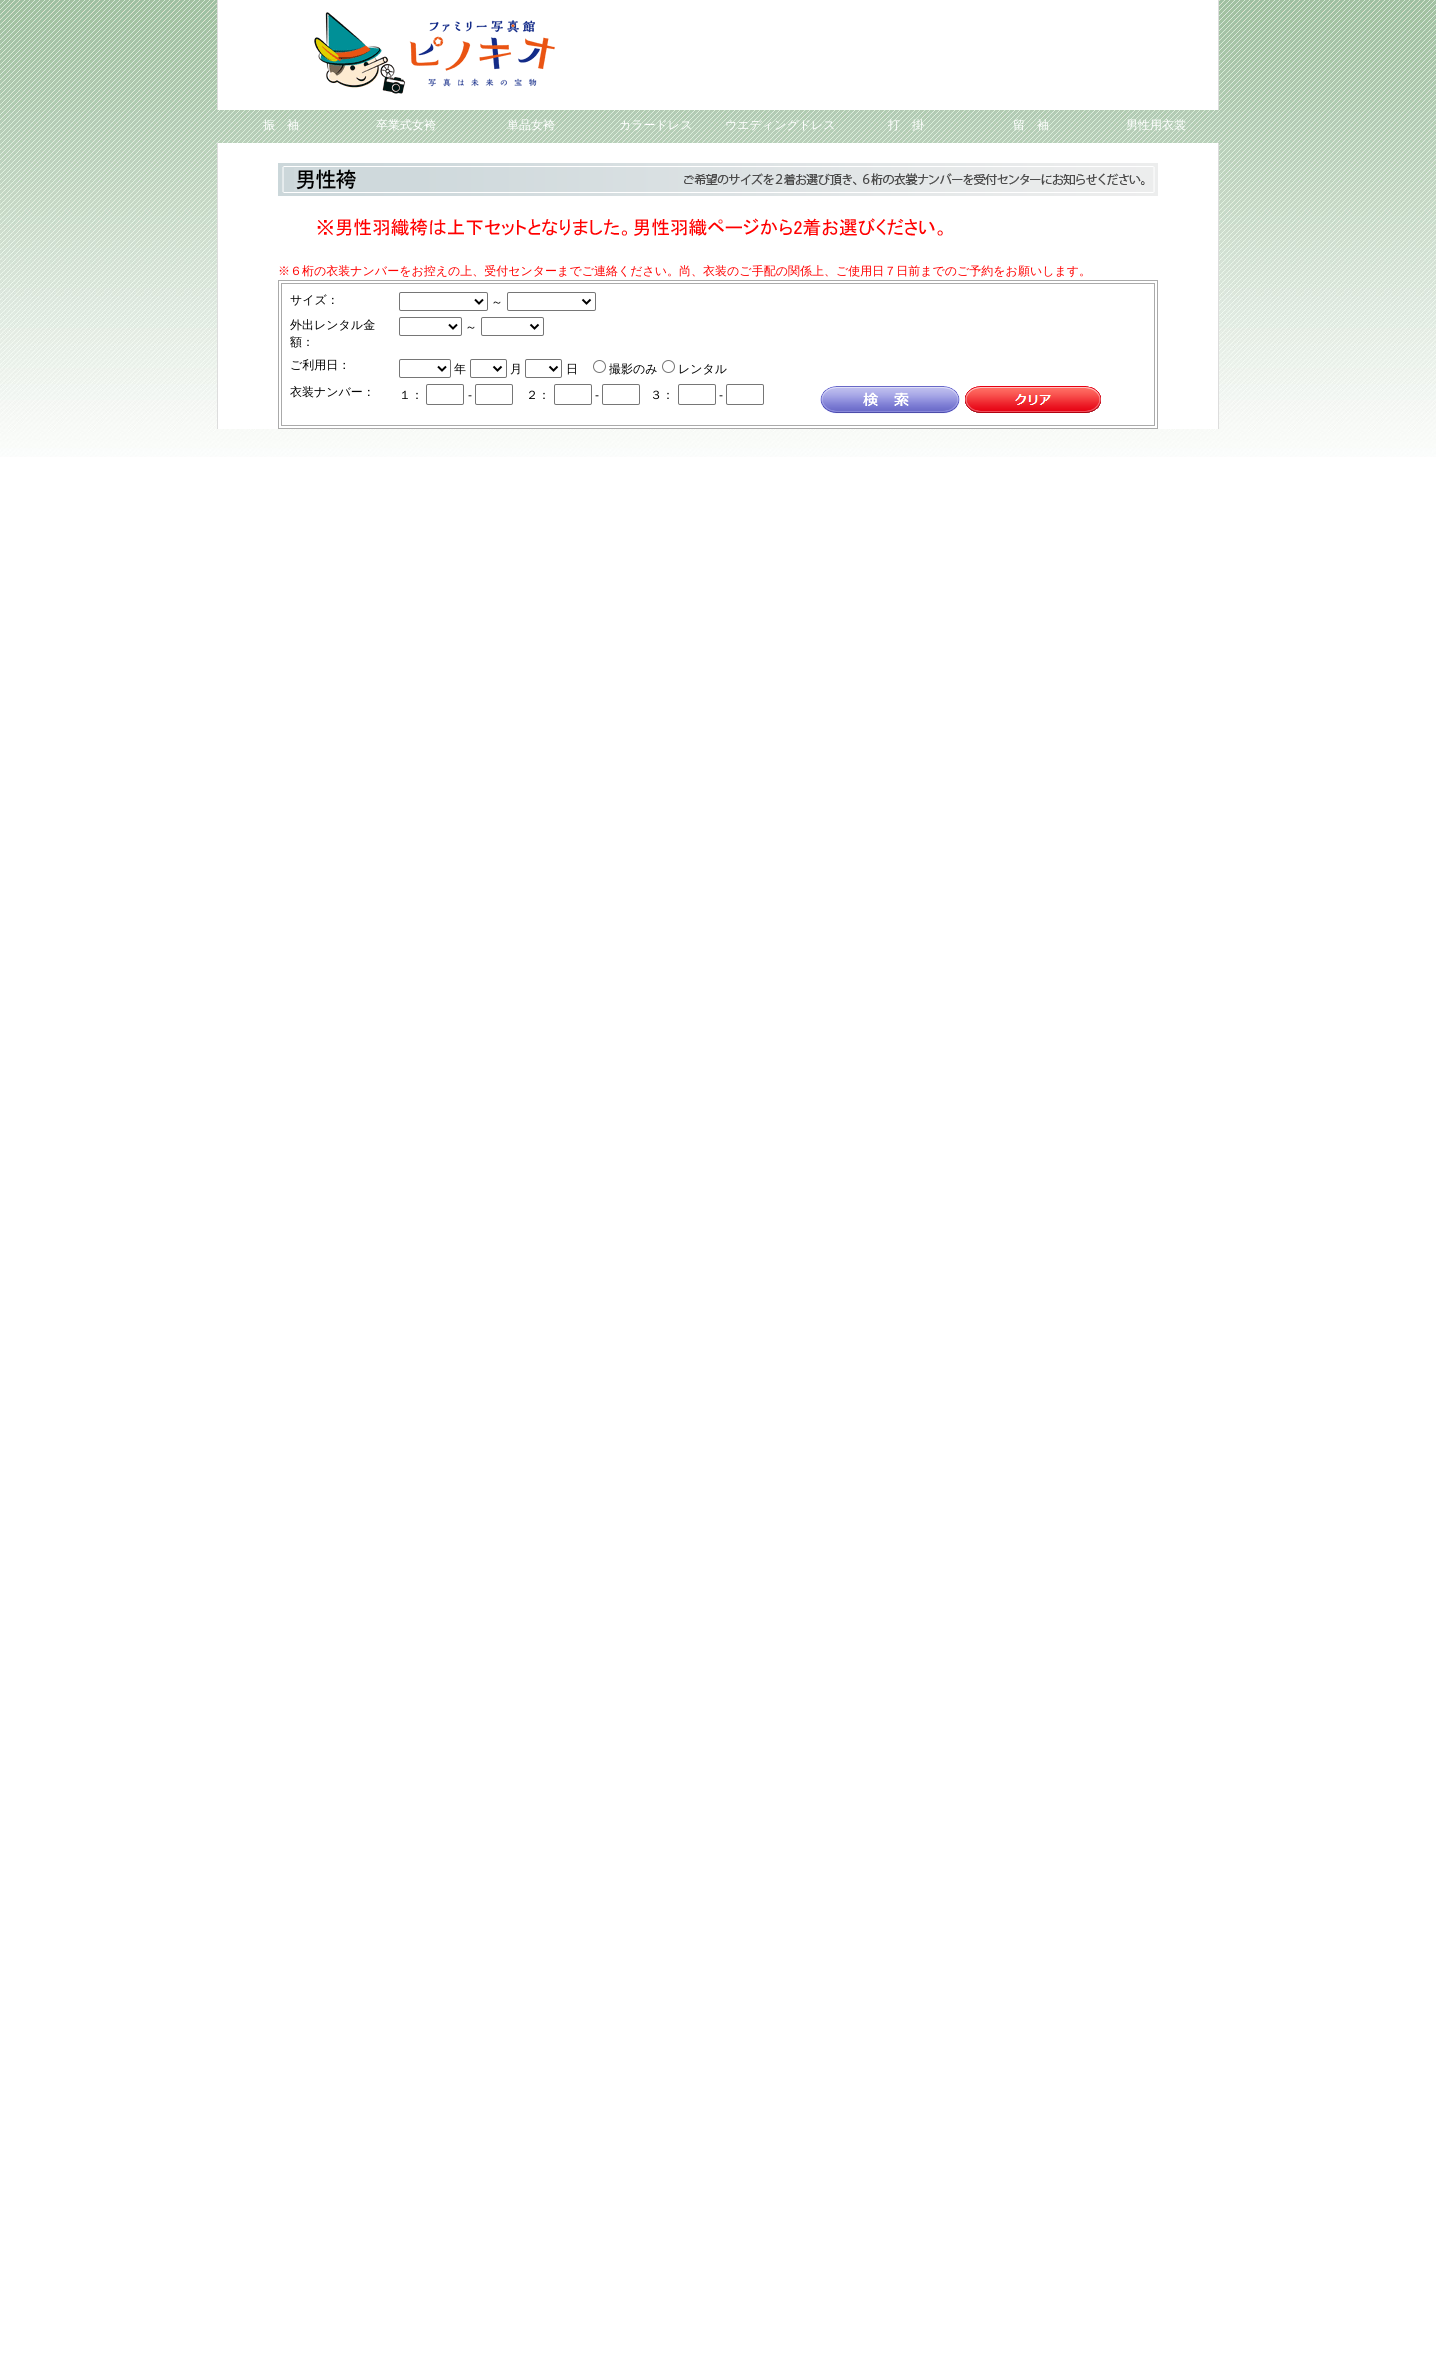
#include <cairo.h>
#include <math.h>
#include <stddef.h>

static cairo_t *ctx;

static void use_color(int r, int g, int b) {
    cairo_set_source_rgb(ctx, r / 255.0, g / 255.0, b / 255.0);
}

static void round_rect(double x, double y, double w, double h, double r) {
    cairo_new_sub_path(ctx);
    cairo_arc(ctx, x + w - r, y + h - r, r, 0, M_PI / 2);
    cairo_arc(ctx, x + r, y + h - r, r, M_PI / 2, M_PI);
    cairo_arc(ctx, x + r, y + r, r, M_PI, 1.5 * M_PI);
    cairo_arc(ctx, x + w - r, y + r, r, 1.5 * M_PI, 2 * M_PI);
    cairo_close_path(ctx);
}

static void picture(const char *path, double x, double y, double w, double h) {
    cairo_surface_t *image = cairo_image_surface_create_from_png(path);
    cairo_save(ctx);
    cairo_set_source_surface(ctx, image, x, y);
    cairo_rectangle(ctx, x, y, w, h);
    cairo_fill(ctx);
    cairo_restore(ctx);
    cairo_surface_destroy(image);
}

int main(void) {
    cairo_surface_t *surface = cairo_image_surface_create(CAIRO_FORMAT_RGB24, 1436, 2370);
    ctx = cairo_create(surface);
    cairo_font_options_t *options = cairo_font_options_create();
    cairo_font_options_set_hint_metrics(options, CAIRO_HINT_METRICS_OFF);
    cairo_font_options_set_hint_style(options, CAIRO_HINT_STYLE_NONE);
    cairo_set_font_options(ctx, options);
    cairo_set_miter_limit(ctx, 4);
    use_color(255, 255, 255);
    cairo_paint(ctx);
    picture("img1.png", 0, 0, 1436, 457);
    use_color(255, 255, 255);
    cairo_rectangle(ctx, 218, 0, 1000, 110);
    cairo_fill(ctx);
    use_color(221, 221, 221);
    cairo_rectangle(ctx, 1218, 0, 1, 110);
    cairo_fill(ctx);
    cairo_rectangle(ctx, 217, 0, 1, 110);
    cairo_fill(ctx);
    picture("img2.png", 314, 12, 241, 82);
    cairo_select_font_face(ctx, "WenQuanYi Zen Hei Medium", CAIRO_FONT_SLANT_NORMAL, CAIRO_FONT_WEIGHT_NORMAL);
    cairo_set_font_size(ctx, 12);
    use_color(255, 255, 255);
    cairo_move_to(ctx, 263, 129);
    cairo_show_text(ctx, "振　袖");
    cairo_move_to(ctx, 376, 129);
    cairo_show_text(ctx, "卒業式女袴");
    cairo_move_to(ctx, 507, 129);
    cairo_show_text(ctx, "単品女袴");
    cairo_move_to(ctx, 619, 129);
    cairo_show_text(ctx, "カラードレス");
    cairo_move_to(ctx, 725, 129);
    cairo_show_text(ctx, "ウエディングドレス");
    cairo_move_to(ctx, 888, 129);
    cairo_show_text(ctx, "打　掛");
    cairo_move_to(ctx, 1013, 129);
    cairo_show_text(ctx, "留　袖");
    cairo_move_to(ctx, 1126, 129);
    cairo_show_text(ctx, "男性用衣裳");
    cairo_rectangle(ctx, 218, 143, 1000, 286);
    cairo_fill(ctx);
    use_color(221, 221, 221);
    cairo_rectangle(ctx, 1218, 143, 1, 286);
    cairo_fill(ctx);
    cairo_rectangle(ctx, 217, 143, 1, 286);
    cairo_fill(ctx);
    picture("img3.png", 278, 163, 880, 73);
    use_color(255, 0, 0);
    cairo_move_to(ctx, 278, 275);
    cairo_show_text(ctx, "※６桁の衣装ナンバーをお控えの上、受付センターまでご連絡ください。尚、衣装のご手配の関係上、ご使用日７日前までのご予約をお願いします。");
    cairo_rectangle(ctx, 278.5, 280.5, 879, 148);
    use_color(170, 170, 170);
    cairo_set_line_width(ctx, 1);
    cairo_stroke(ctx);
    cairo_rectangle(ctx, 281.5, 283.5, 873, 142);
    cairo_stroke(ctx);
    use_color(0, 0, 0);
    cairo_move_to(ctx, 290, 304);
    cairo_show_text(ctx, "サイズ：");
    round_rect(399.5, 292.5, 88, 18, 1.5);
    use_color(118, 118, 118);
    cairo_stroke(ctx);
    cairo_new_path(ctx);
    cairo_move_to(ctx, 475, 299.5);
    cairo_line_to(ctx, 479, 303.5);
    cairo_line_to(ctx, 483, 299.5);
    use_color(0, 0, 0);
    cairo_set_line_width(ctx, 2);
    cairo_stroke(ctx);
    cairo_move_to(ctx, 491, 306);
    cairo_show_text(ctx, "～");
    round_rect(507.5, 292.5, 88, 18, 1.5);
    use_color(118, 118, 118);
    cairo_set_line_width(ctx, 1);
    cairo_stroke(ctx);
    cairo_new_path(ctx);
    cairo_move_to(ctx, 582.5, 299.5);
    cairo_line_to(ctx, 586.5, 303.5);
    cairo_line_to(ctx, 590.5, 299.5);
    use_color(0, 0, 0);
    cairo_set_line_width(ctx, 2);
    cairo_stroke(ctx);
    cairo_move_to(ctx, 290, 329);
    cairo_show_text(ctx, "外出レンタル金");
    cairo_move_to(ctx, 290, 346);
    cairo_show_text(ctx, "額：");
    round_rect(399.5, 317.5, 62, 18, 1.5);
    use_color(118, 118, 118);
    cairo_set_line_width(ctx, 1);
    cairo_stroke(ctx);
    cairo_new_path(ctx);
    cairo_move_to(ctx, 449, 324.5);
    cairo_line_to(ctx, 453, 328.5);
    cairo_line_to(ctx, 457, 324.5);
    use_color(0, 0, 0);
    cairo_set_line_width(ctx, 2);
    cairo_stroke(ctx);
    cairo_move_to(ctx, 465, 331);
    cairo_show_text(ctx, "～");
    round_rect(481.5, 317.5, 62, 18, 1.5);
    use_color(118, 118, 118);
    cairo_set_line_width(ctx, 1);
    cairo_stroke(ctx);
    cairo_new_path(ctx);
    cairo_move_to(ctx, 530.5, 324.5);
    cairo_line_to(ctx, 534.5, 328.5);
    cairo_line_to(ctx, 538.5, 324.5);
    use_color(0, 0, 0);
    cairo_set_line_width(ctx, 2);
    cairo_stroke(ctx);
    cairo_move_to(ctx, 290, 369);
    cairo_show_text(ctx, "ご利用日：");
    round_rect(399.5, 359.5, 51, 18, 1.5);
    use_color(118, 118, 118);
    cairo_set_line_width(ctx, 1);
    cairo_stroke(ctx);
    cairo_new_path(ctx);
    cairo_move_to(ctx, 438, 366.5);
    cairo_line_to(ctx, 442, 370.5);
    cairo_line_to(ctx, 446, 366.5);
    use_color(0, 0, 0);
    cairo_set_line_width(ctx, 2);
    cairo_stroke(ctx);
    cairo_move_to(ctx, 454, 373);
    cairo_show_text(ctx, "年");
    round_rect(470.5, 359.5, 36, 18, 1.5);
    use_color(118, 118, 118);
    cairo_set_line_width(ctx, 1);
    cairo_stroke(ctx);
    cairo_new_path(ctx);
    cairo_move_to(ctx, 493.5, 366.5);
    cairo_line_to(ctx, 497.5, 370.5);
    cairo_line_to(ctx, 501.5, 366.5);
    use_color(0, 0, 0);
    cairo_set_line_width(ctx, 2);
    cairo_stroke(ctx);
    cairo_move_to(ctx, 510, 373);
    cairo_show_text(ctx, "月");
    round_rect(525.5, 359.5, 36, 18, 1.5);
    use_color(118, 118, 118);
    cairo_set_line_width(ctx, 1);
    cairo_stroke(ctx);
    cairo_new_path(ctx);
    cairo_move_to(ctx, 549.5, 366.5);
    cairo_line_to(ctx, 553.5, 370.5);
    cairo_line_to(ctx, 557.5, 366.5);
    use_color(0, 0, 0);
    cairo_set_line_width(ctx, 2);
    cairo_stroke(ctx);
    cairo_move_to(ctx, 566, 373);
    cairo_show_text(ctx, "日");
    cairo_new_path(ctx);
    cairo_arc(ctx, 599.5, 366.5, 6, 0, 2 * M_PI);
    use_color(118, 118, 118);
    cairo_set_line_width(ctx, 1);
    cairo_stroke(ctx);
    use_color(0, 0, 0);
    cairo_move_to(ctx, 609, 373);
    cairo_show_text(ctx, "撮影のみ");
    cairo_new_path(ctx);
    cairo_arc(ctx, 668.5, 366.5, 6, 0, 2 * M_PI);
    use_color(118, 118, 118);
    cairo_stroke(ctx);
    use_color(0, 0, 0);
    cairo_move_to(ctx, 678, 373);
    cairo_show_text(ctx, "レンタル");
    cairo_move_to(ctx, 290, 396);
    cairo_show_text(ctx, "衣装ナンバー：");
    cairo_move_to(ctx, 399, 399);
    cairo_show_text(ctx, "１：");
    round_rect(426.5, 384.5, 37, 20, 1.5);
    use_color(118, 118, 118);
    cairo_stroke(ctx);
    cairo_select_font_face(ctx, "Liberation Sans", CAIRO_FONT_SLANT_NORMAL, CAIRO_FONT_WEIGHT_NORMAL);
    use_color(0, 0, 0);
    cairo_move_to(ctx, 468, 399);
    cairo_show_text(ctx, "-");
    round_rect(475.5, 384.5, 37, 20, 1.5);
    use_color(118, 118, 118);
    cairo_stroke(ctx);
    cairo_select_font_face(ctx, "WenQuanYi Zen Hei Medium", CAIRO_FONT_SLANT_NORMAL, CAIRO_FONT_WEIGHT_NORMAL);
    use_color(0, 0, 0);
    cairo_move_to(ctx, 526, 399);
    cairo_show_text(ctx, "２：");
    round_rect(554.5, 384.5, 37, 20, 1.5);
    use_color(118, 118, 118);
    cairo_stroke(ctx);
    cairo_select_font_face(ctx, "Liberation Sans", CAIRO_FONT_SLANT_NORMAL, CAIRO_FONT_WEIGHT_NORMAL);
    use_color(0, 0, 0);
    cairo_move_to(ctx, 595, 399);
    cairo_show_text(ctx, "-");
    round_rect(602.5, 384.5, 37, 20, 1.5);
    use_color(118, 118, 118);
    cairo_stroke(ctx);
    cairo_select_font_face(ctx, "WenQuanYi Zen Hei Medium", CAIRO_FONT_SLANT_NORMAL, CAIRO_FONT_WEIGHT_NORMAL);
    use_color(0, 0, 0);
    cairo_move_to(ctx, 650, 399);
    cairo_show_text(ctx, "３：");
    round_rect(678.5, 384.5, 37, 20, 1.5);
    use_color(118, 118, 118);
    cairo_stroke(ctx);
    cairo_select_font_face(ctx, "Liberation Sans", CAIRO_FONT_SLANT_NORMAL, CAIRO_FONT_WEIGHT_NORMAL);
    use_color(0, 0, 0);
    cairo_move_to(ctx, 719, 399);
    cairo_show_text(ctx, "-");
    round_rect(726.5, 384.5, 37, 20, 1.5);
    use_color(118, 118, 118);
    cairo_stroke(ctx);
    picture("img4.png", 820, 386, 140, 28);
    picture("img5.png", 965, 386, 136, 27);
    cairo_surface_write_to_png(surface, "result.png");
    cairo_font_options_destroy(options);
    cairo_destroy(ctx);
    cairo_surface_destroy(surface);
    return 0;
}
